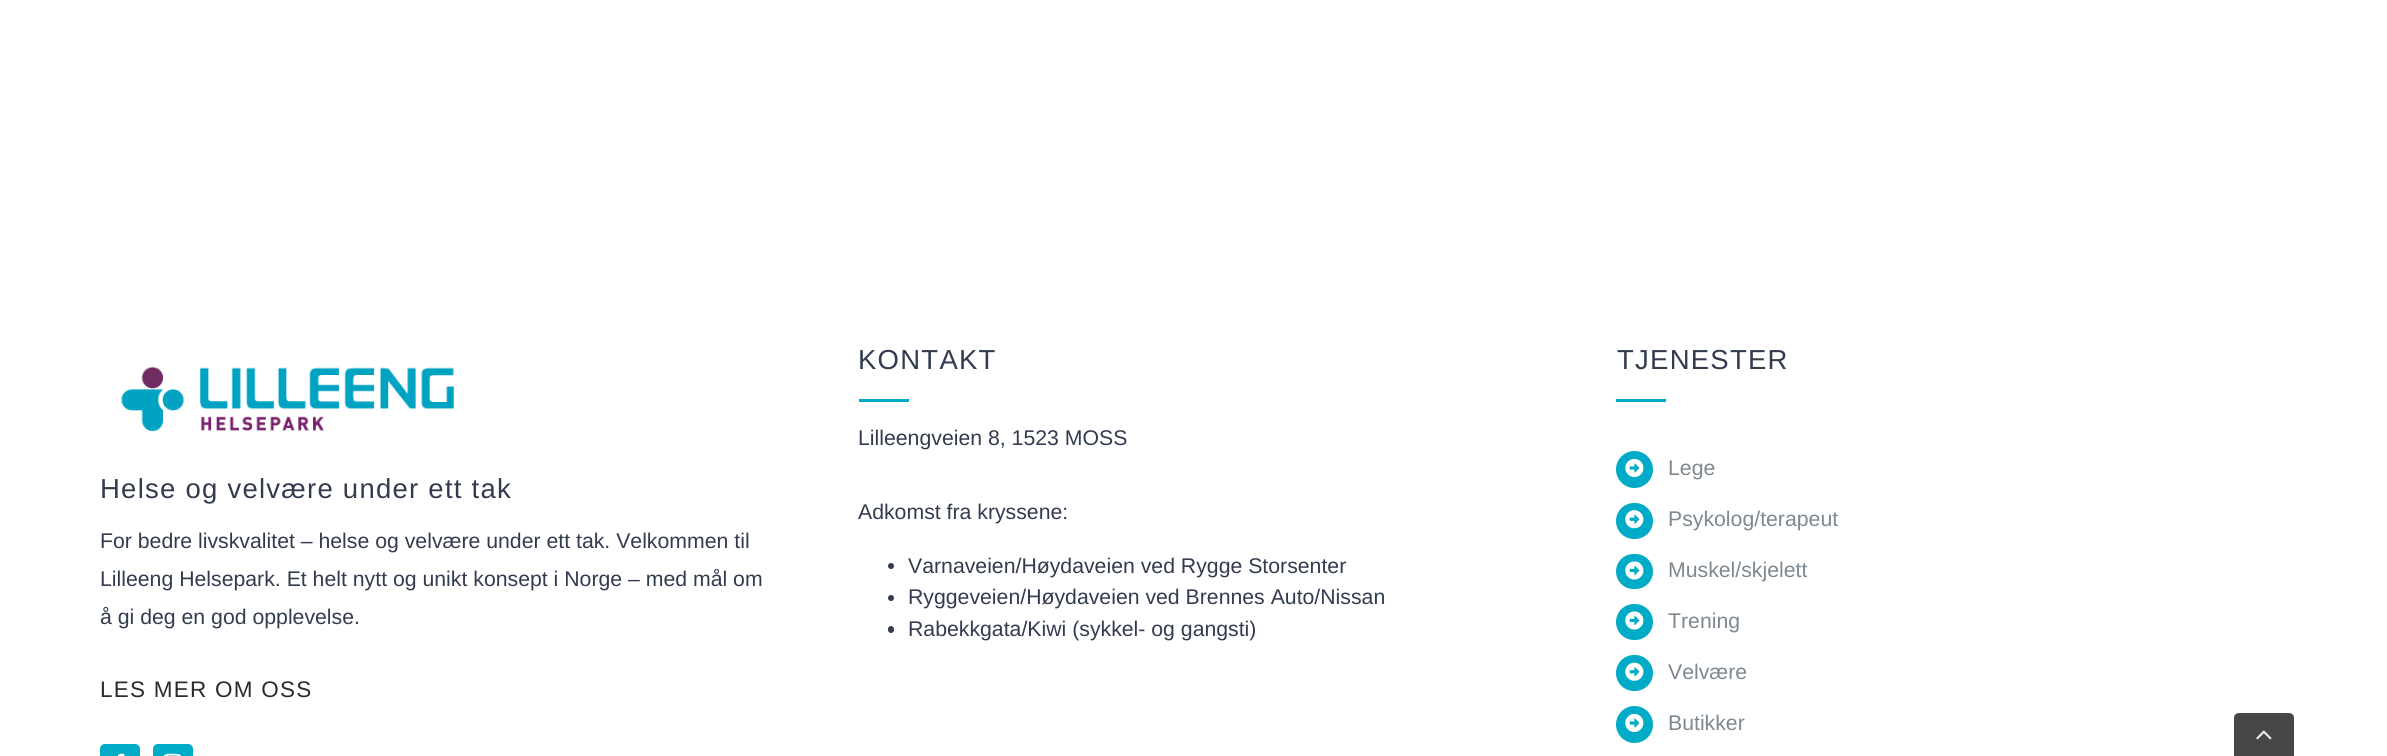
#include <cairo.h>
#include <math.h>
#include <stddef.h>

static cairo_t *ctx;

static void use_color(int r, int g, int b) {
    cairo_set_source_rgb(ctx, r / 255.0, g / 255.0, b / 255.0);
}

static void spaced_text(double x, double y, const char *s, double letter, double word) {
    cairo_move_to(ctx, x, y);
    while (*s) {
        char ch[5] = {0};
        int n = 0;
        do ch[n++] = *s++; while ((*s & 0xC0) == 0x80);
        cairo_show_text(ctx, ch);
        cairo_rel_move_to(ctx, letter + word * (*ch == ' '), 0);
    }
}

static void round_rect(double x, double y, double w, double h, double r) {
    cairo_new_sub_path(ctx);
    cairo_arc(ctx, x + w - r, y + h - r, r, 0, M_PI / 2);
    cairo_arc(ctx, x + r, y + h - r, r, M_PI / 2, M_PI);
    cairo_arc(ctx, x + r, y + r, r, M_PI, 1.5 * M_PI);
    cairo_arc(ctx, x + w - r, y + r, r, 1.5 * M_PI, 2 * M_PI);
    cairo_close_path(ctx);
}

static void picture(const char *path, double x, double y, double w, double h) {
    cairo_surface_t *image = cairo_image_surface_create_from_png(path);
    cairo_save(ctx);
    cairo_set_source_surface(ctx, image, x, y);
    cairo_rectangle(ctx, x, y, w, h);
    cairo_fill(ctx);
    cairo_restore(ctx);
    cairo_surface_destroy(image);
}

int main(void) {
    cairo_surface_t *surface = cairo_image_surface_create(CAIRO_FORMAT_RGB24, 2387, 756);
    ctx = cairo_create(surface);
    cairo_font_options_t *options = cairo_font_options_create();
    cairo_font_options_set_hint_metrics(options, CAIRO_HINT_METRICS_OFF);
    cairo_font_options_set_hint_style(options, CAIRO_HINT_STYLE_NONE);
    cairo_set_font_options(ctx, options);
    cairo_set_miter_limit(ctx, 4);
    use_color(255, 255, 255);
    cairo_paint(ctx);
    picture("img1.png", 121, 366, 333, 66);
    cairo_select_font_face(ctx, "Liberation Sans", CAIRO_FONT_SLANT_NORMAL, CAIRO_FONT_WEIGHT_NORMAL);
    cairo_set_font_size(ctx, 27.5);
    use_color(51, 60, 78);
    spaced_text(100, 498, "Helse og velvære under ett tak", 1.25, 0);
    cairo_set_font_size(ctx, 21.25);
    cairo_move_to(ctx, 100, 548);
    cairo_show_text(ctx, "For bedre livskvalitet – helse og velvære under ett tak. Velkommen til");
    cairo_move_to(ctx, 100, 586);
    cairo_show_text(ctx, "Lilleeng Helsepark. Et helt nytt og unikt konsept i Norge – med mål om");
    cairo_move_to(ctx, 100, 624);
    cairo_show_text(ctx, "å gi deg en god opplevelse.");
    cairo_set_font_size(ctx, 22.5);
    use_color(43, 43, 43);
    spaced_text(100, 697, "LES MER OM OSS", 1.25, 0);
    use_color(0, 171, 200);
    round_rect(100, 744, 40, 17, 5);
    cairo_fill(ctx);
    picture("img2.png", 117, 753, 8, 3);
    round_rect(153, 744, 40, 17, 5);
    cairo_fill(ctx);
    picture("img3.png", 163, 753, 19, 3);
    cairo_set_font_size(ctx, 27.5);
    use_color(51, 60, 78);
    spaced_text(858, 369, "KONTAKT", 1.25, 0);
    use_color(0, 171, 200);
    cairo_rectangle(ctx, 859, 399, 50, 3);
    cairo_fill(ctx);
    cairo_set_font_size(ctx, 21.25);
    use_color(51, 60, 78);
    cairo_move_to(ctx, 858, 445);
    cairo_show_text(ctx, "Lilleengveien 8, 1523 MOSS");
    cairo_move_to(ctx, 858, 519);
    cairo_show_text(ctx, "Adkomst fra kryssene:");
    cairo_new_path(ctx);
    cairo_arc(ctx, 891, 566, 3, 0, 2 * M_PI);
    cairo_fill(ctx);
    cairo_move_to(ctx, 908, 573);
    cairo_show_text(ctx, "Varnaveien/Høydaveien ved Rygge Storsenter");
    cairo_new_path(ctx);
    cairo_arc(ctx, 891, 598, 3, 0, 2 * M_PI);
    cairo_fill(ctx);
    cairo_move_to(ctx, 908, 604);
    cairo_show_text(ctx, "Ryggeveien/Høydaveien ved Brennes Auto/Nissan");
    round_rect(888, 626, 6, 7, 3);
    cairo_fill(ctx);
    cairo_move_to(ctx, 908, 636);
    cairo_show_text(ctx, "Rabekkgata/Kiwi (sykkel- og gangsti)");
    cairo_set_font_size(ctx, 27.5);
    spaced_text(1617, 369, "TJENESTER", 1.25, 0);
    use_color(0, 171, 200);
    cairo_rectangle(ctx, 1616, 399, 50, 3);
    cairo_fill(ctx);
    cairo_arc(ctx, 1634.5, 469.5, 18.5, 0, 2 * M_PI);
    cairo_fill(ctx);
    picture("img4.png", 1625, 458, 19, 19);
    cairo_set_font_size(ctx, 21.25);
    use_color(126, 136, 144);
    cairo_move_to(ctx, 1668, 475);
    cairo_show_text(ctx, "Lege");
    use_color(0, 171, 200);
    round_rect(1616, 503, 37, 36, 18);
    cairo_fill(ctx);
    picture("img5.png", 1625, 510, 19, 19);
    use_color(126, 136, 144);
    cairo_move_to(ctx, 1668, 526);
    cairo_show_text(ctx, "Psykolog/terapeut");
    use_color(0, 171, 200);
    round_rect(1616, 554, 37, 35, 17.5);
    cairo_fill(ctx);
    picture("img6.png", 1625, 561, 19, 19);
    use_color(126, 136, 144);
    cairo_move_to(ctx, 1668, 577);
    cairo_show_text(ctx, "Muskel/skjelett");
    use_color(0, 171, 200);
    round_rect(1616, 604, 37, 36, 18);
    cairo_fill(ctx);
    picture("img6.png", 1625, 611, 19, 19);
    use_color(126, 136, 144);
    cairo_move_to(ctx, 1668, 628);
    cairo_show_text(ctx, "Trening");
    use_color(0, 171, 200);
    round_rect(1616, 655, 37, 36, 18);
    cairo_fill(ctx);
    picture("img7.png", 1625, 662, 19, 19);
    use_color(126, 136, 144);
    cairo_move_to(ctx, 1668, 679);
    cairo_show_text(ctx, "Velvære");
    use_color(0, 171, 200);
    cairo_new_path(ctx);
    cairo_arc(ctx, 1634.5, 724.5, 18.5, 0, 2 * M_PI);
    cairo_fill(ctx);
    picture("img4.png", 1625, 713, 19, 19);
    use_color(126, 136, 144);
    cairo_move_to(ctx, 1668, 730);
    cairo_show_text(ctx, "Butikker");
    use_color(71, 71, 71);
    cairo_new_path(ctx);
    cairo_move_to(ctx, 2239, 713);
    cairo_line_to(ctx, 2289, 713);
    cairo_curve_to(ctx, 2292, 713, 2294, 715, 2294, 718);
    cairo_line_to(ctx, 2294, 756);
    cairo_line_to(ctx, 2234, 756);
    cairo_line_to(ctx, 2234, 718);
    cairo_curve_to(ctx, 2234, 715, 2236, 713, 2239, 713);
    cairo_close_path(ctx);
    cairo_fill(ctx);
    picture("img8.png", 2256, 730, 16, 10);
    cairo_surface_write_to_png(surface, "result.png");
    cairo_font_options_destroy(options);
    cairo_destroy(ctx);
    cairo_surface_destroy(surface);
    return 0;
}
